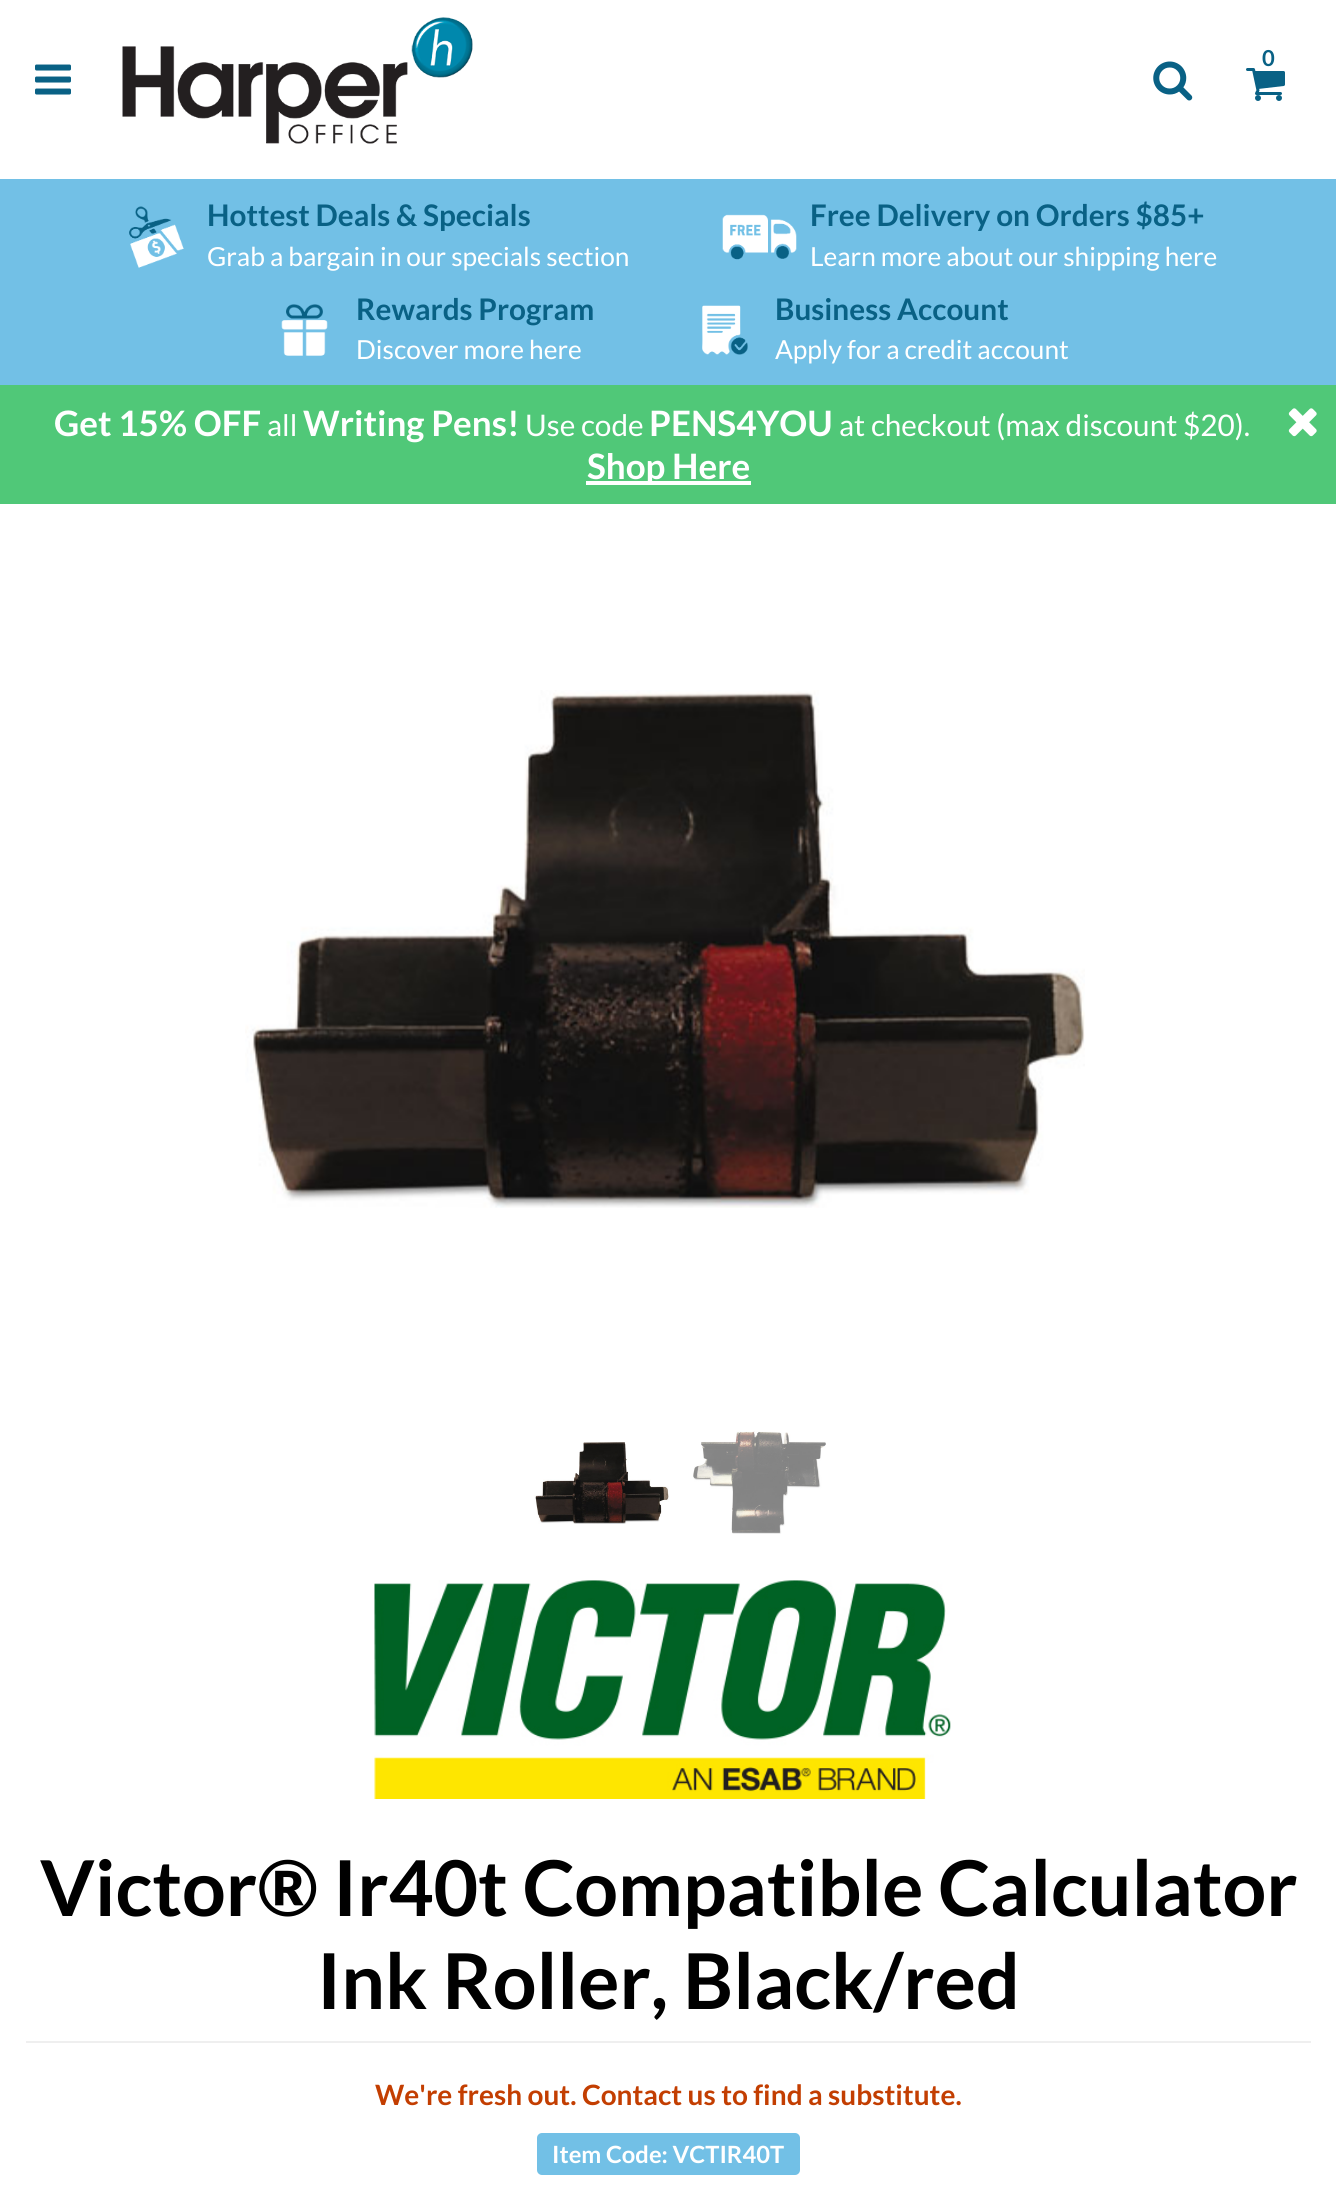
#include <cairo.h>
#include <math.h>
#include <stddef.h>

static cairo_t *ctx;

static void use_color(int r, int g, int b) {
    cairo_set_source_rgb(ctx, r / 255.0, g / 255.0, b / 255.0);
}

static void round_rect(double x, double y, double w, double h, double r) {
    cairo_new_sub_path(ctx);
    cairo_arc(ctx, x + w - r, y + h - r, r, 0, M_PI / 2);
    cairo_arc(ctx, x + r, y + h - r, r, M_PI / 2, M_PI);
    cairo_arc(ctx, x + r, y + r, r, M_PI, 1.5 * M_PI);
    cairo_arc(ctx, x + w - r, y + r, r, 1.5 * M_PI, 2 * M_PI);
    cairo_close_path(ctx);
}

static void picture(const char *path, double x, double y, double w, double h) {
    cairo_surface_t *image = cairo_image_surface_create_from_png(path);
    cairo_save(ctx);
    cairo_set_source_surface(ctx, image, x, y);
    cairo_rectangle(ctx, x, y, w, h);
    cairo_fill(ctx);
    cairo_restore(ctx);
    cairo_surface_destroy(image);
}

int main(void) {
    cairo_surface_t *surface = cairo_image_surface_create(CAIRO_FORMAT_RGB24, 1336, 2201);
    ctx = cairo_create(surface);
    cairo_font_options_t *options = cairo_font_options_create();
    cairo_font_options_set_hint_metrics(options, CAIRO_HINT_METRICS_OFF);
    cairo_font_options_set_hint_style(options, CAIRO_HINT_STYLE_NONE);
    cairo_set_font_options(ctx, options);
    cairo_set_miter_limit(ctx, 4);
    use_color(255, 255, 255);
    cairo_paint(ctx);
    picture("img1.png", 122, 17, 351, 127);
    cairo_select_font_face(ctx, "Lato", CAIRO_FONT_SLANT_NORMAL, CAIRO_FONT_WEIGHT_BOLD);
    cairo_set_font_size(ctx, 22);
    use_color(9, 97, 133);
    cairo_move_to(ctx, 1262, 66);
    cairo_show_text(ctx, "0");
    picture("img2.png", 1246, 68, 39, 33);
    picture("img3.png", 1153, 61, 40, 40);
    picture("img4.png", 35, 64, 36, 31);
    use_color(114, 192, 230);
    cairo_rectangle(ctx, 0, 179, 1336, 206);
    cairo_fill(ctx);
    picture("img5.png", 129, 206, 55, 62);
    cairo_set_font_size(ctx, 29.75);
    use_color(9, 97, 133);
    cairo_move_to(ctx, 207, 226);
    cairo_show_text(ctx, "Hottest Deals & Specials");
    cairo_select_font_face(ctx, "Lato", CAIRO_FONT_SLANT_NORMAL, CAIRO_FONT_WEIGHT_NORMAL);
    cairo_set_font_size(ctx, 26.25);
    use_color(255, 255, 255);
    cairo_move_to(ctx, 207, 266);
    cairo_show_text(ctx, "Grab a bargain in our specials section");
    picture("img6.png", 722, 214, 75, 46);
    cairo_select_font_face(ctx, "Lato", CAIRO_FONT_SLANT_NORMAL, CAIRO_FONT_WEIGHT_BOLD);
    cairo_set_font_size(ctx, 29.75);
    use_color(9, 97, 133);
    cairo_move_to(ctx, 810, 226);
    cairo_show_text(ctx, "Free Delivery on Orders $85+");
    cairo_select_font_face(ctx, "Lato", CAIRO_FONT_SLANT_NORMAL, CAIRO_FONT_WEIGHT_NORMAL);
    cairo_set_font_size(ctx, 26.25);
    use_color(255, 255, 255);
    cairo_move_to(ctx, 810, 266);
    cairo_show_text(ctx, "Learn more about our shipping here");
    picture("img7.png", 281, 304, 47, 52);
    cairo_select_font_face(ctx, "Lato", CAIRO_FONT_SLANT_NORMAL, CAIRO_FONT_WEIGHT_BOLD);
    cairo_set_font_size(ctx, 29.75);
    use_color(9, 97, 133);
    cairo_move_to(ctx, 356, 320);
    cairo_show_text(ctx, "Rewards Program");
    cairo_select_font_face(ctx, "Lato", CAIRO_FONT_SLANT_NORMAL, CAIRO_FONT_WEIGHT_NORMAL);
    cairo_set_font_size(ctx, 26.25);
    use_color(255, 255, 255);
    cairo_move_to(ctx, 356, 359);
    cairo_show_text(ctx, "Discover more here");
    picture("img8.png", 702, 305, 46, 50);
    cairo_select_font_face(ctx, "Lato", CAIRO_FONT_SLANT_NORMAL, CAIRO_FONT_WEIGHT_BOLD);
    cairo_set_font_size(ctx, 29.75);
    use_color(9, 97, 133);
    cairo_move_to(ctx, 775, 320);
    cairo_show_text(ctx, "Business Account");
    cairo_select_font_face(ctx, "Lato", CAIRO_FONT_SLANT_NORMAL, CAIRO_FONT_WEIGHT_NORMAL);
    cairo_set_font_size(ctx, 26.25);
    use_color(255, 255, 255);
    cairo_move_to(ctx, 775, 359);
    cairo_show_text(ctx, "Apply for a credit account");
    use_color(80, 200, 120);
    cairo_rectangle(ctx, 0, 385, 1336, 119);
    cairo_fill(ctx);
    cairo_select_font_face(ctx, "Lato", CAIRO_FONT_SLANT_NORMAL, CAIRO_FONT_WEIGHT_BOLD);
    cairo_set_font_size(ctx, 35);
    use_color(255, 255, 255);
    cairo_move_to(ctx, 54, 436);
    cairo_show_text(ctx, "Get 15% OFF");
    cairo_select_font_face(ctx, "Lato", CAIRO_FONT_SLANT_NORMAL, CAIRO_FONT_WEIGHT_NORMAL);
    cairo_set_font_size(ctx, 29.75);
    cairo_move_to(ctx, 267, 436);
    cairo_show_text(ctx, "all");
    cairo_select_font_face(ctx, "Lato", CAIRO_FONT_SLANT_NORMAL, CAIRO_FONT_WEIGHT_BOLD);
    cairo_set_font_size(ctx, 35);
    cairo_move_to(ctx, 303, 436);
    cairo_show_text(ctx, "Writing Pens!");
    cairo_select_font_face(ctx, "Lato", CAIRO_FONT_SLANT_NORMAL, CAIRO_FONT_WEIGHT_NORMAL);
    cairo_set_font_size(ctx, 29.75);
    cairo_move_to(ctx, 525, 436);
    cairo_show_text(ctx, "Use code");
    cairo_select_font_face(ctx, "Lato", CAIRO_FONT_SLANT_NORMAL, CAIRO_FONT_WEIGHT_BOLD);
    cairo_set_font_size(ctx, 35);
    cairo_move_to(ctx, 649, 436);
    cairo_show_text(ctx, "PENS4YOU");
    cairo_select_font_face(ctx, "Lato", CAIRO_FONT_SLANT_NORMAL, CAIRO_FONT_WEIGHT_NORMAL);
    cairo_set_font_size(ctx, 29.75);
    cairo_move_to(ctx, 839, 436);
    cairo_show_text(ctx, "at checkout (max discount $20).");
    cairo_rectangle(ctx, 586, 481, 165, 4);
    cairo_fill(ctx);
    cairo_select_font_face(ctx, "Lato", CAIRO_FONT_SLANT_NORMAL, CAIRO_FONT_WEIGHT_BOLD);
    cairo_set_font_size(ctx, 35);
    cairo_move_to(ctx, 587, 479);
    cairo_show_text(ctx, "Shop Here");
    picture("img9.png", 1288, 408, 29, 29);
    picture("img10.png", 245, 690, 840, 518);
    picture("img11.png", 534, 1442, 135, 82);
    picture("img12.png", 693, 1431, 133, 103);
    use_color(239, 239, 239);
    cairo_rectangle(ctx, 26, 2041, 1285, 2);
    cairo_fill(ctx);
    picture("img13.png", 374, 1580, 577, 219);
    cairo_set_font_size(ctx, 77);
    use_color(0, 0, 0);
    cairo_move_to(ctx, 40, 1916);
    cairo_show_text(ctx, "Victor® Ir40t Compatible Calculator");
    cairo_move_to(ctx, 317, 2009);
    cairo_show_text(ctx, "Ink Roller, Black/red");
    cairo_set_font_size(ctx, 28);
    use_color(195, 62, 1);
    cairo_move_to(ctx, 375, 2105);
    cairo_show_text(ctx, "We're fresh out. Contact us to find a substitute.");
    use_color(114, 192, 230);
    round_rect(537, 2133, 263, 42, 5);
    cairo_fill(ctx);
    cairo_set_font_size(ctx, 23.75);
    use_color(255, 255, 255);
    cairo_move_to(ctx, 552, 2163);
    cairo_show_text(ctx, "Item Code: VCTIR40T");
    cairo_surface_write_to_png(surface, "result.png");
    cairo_font_options_destroy(options);
    cairo_destroy(ctx);
    cairo_surface_destroy(surface);
    return 0;
}
